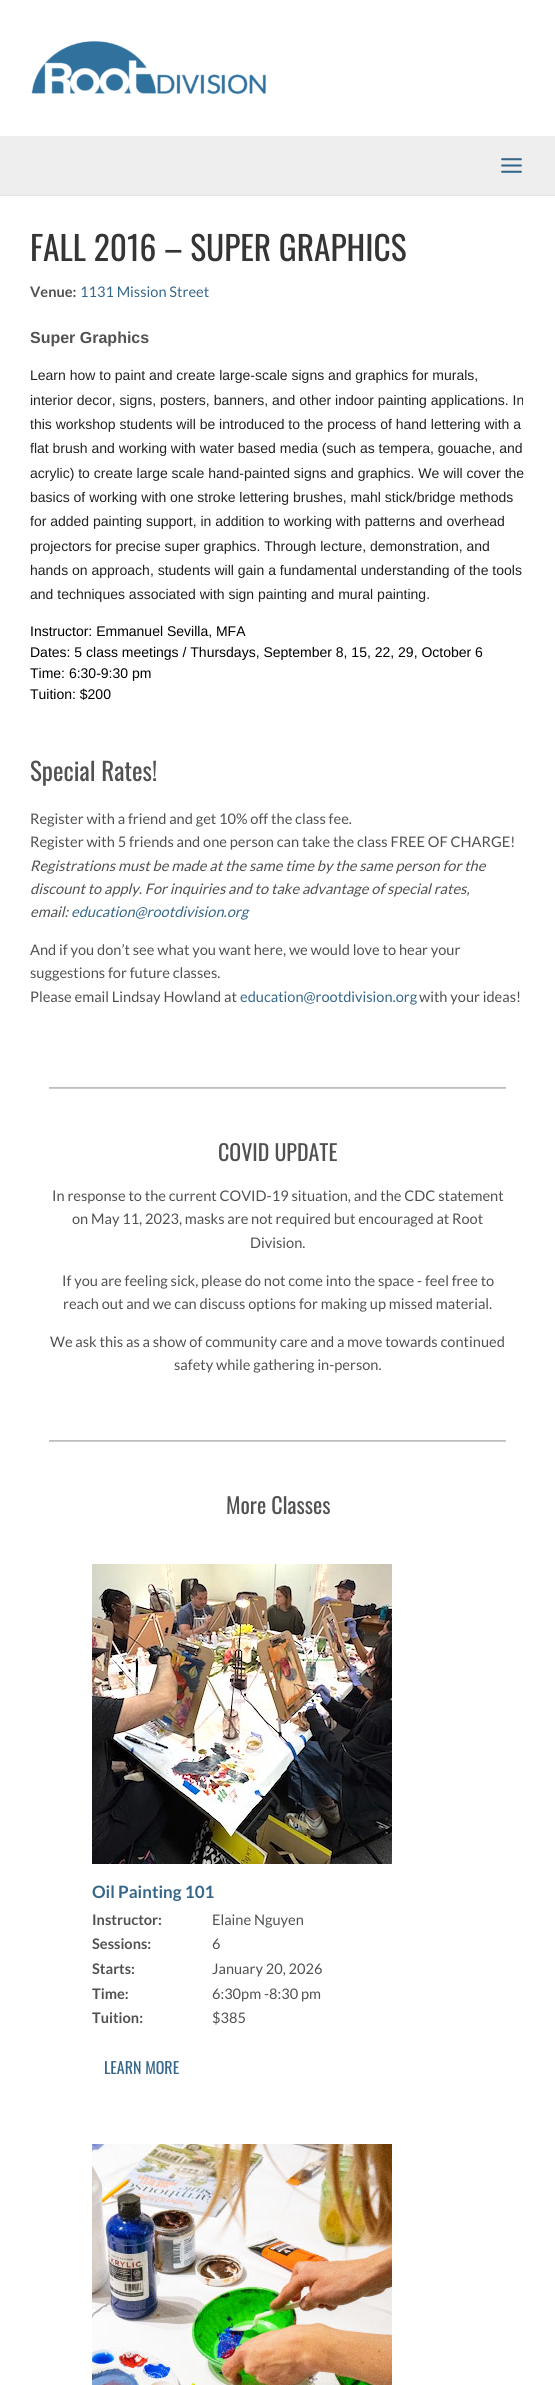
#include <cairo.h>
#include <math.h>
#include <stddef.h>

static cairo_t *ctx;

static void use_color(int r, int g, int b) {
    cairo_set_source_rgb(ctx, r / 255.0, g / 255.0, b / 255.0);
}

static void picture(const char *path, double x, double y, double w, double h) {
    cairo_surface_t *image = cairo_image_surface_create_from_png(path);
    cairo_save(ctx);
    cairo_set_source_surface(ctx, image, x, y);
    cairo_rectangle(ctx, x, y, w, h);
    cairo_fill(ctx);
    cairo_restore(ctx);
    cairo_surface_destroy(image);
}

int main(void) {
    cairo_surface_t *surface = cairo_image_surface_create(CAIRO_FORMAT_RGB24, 555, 2385);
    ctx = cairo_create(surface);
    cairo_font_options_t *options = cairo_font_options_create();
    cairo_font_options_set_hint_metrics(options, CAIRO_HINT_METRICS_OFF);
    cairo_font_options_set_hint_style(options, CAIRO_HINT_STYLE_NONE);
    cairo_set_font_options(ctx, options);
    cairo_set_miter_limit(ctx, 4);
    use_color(255, 255, 255);
    cairo_paint(ctx);
    picture("img1.png", 31, 40, 235, 55);
    use_color(238, 238, 238);
    cairo_rectangle(ctx, 0, 136, 555, 59);
    cairo_fill(ctx);
    use_color(229, 229, 229);
    cairo_rectangle(ctx, 0, 195, 555, 1);
    cairo_fill(ctx);
    picture("img2.png", 501, 158, 21, 15);
    cairo_select_font_face(ctx, "Oswald", CAIRO_FONT_SLANT_NORMAL, CAIRO_FONT_WEIGHT_NORMAL);
    cairo_set_font_size(ctx, 33.4);
    use_color(52, 53, 52);
    cairo_move_to(ctx, 30, 261);
    cairo_show_text(ctx, "FALL 2016 – SUPER GRAPHICS");
    cairo_select_font_face(ctx, "Lato", CAIRO_FONT_SLANT_NORMAL, CAIRO_FONT_WEIGHT_BOLD);
    cairo_set_font_size(ctx, 14.6);
    use_color(81, 81, 81);
    cairo_move_to(ctx, 30, 297);
    cairo_show_text(ctx, "Venue:");
    cairo_select_font_face(ctx, "Lato", CAIRO_FONT_SLANT_NORMAL, CAIRO_FONT_WEIGHT_NORMAL);
    use_color(54, 103, 138);
    cairo_move_to(ctx, 80, 297);
    cairo_show_text(ctx, "1131 Mission Street");
    cairo_select_font_face(ctx, "Liberation Sans", CAIRO_FONT_SLANT_NORMAL, CAIRO_FONT_WEIGHT_BOLD);
    cairo_set_font_size(ctx, 16);
    use_color(81, 81, 81);
    cairo_move_to(ctx, 30, 343);
    cairo_show_text(ctx, "Super Graphics");
    cairo_select_font_face(ctx, "Liberation Sans", CAIRO_FONT_SLANT_NORMAL, CAIRO_FONT_WEIGHT_NORMAL);
    cairo_set_font_size(ctx, 14);
    use_color(34, 34, 34);
    cairo_move_to(ctx, 30, 380);
    cairo_show_text(ctx, "Learn how to paint and create large-scale signs and graphics for murals,");
    cairo_move_to(ctx, 30, 405);
    cairo_show_text(ctx, "interior decor, signs, posters, banners, and other indoor painting applications. In");
    cairo_move_to(ctx, 30, 429);
    cairo_show_text(ctx, "this workshop students will be introduced to the process of hand lettering with a");
    cairo_move_to(ctx, 30, 453);
    cairo_show_text(ctx, "flat brush and working with water based media (such as tempera, gouache, and");
    cairo_move_to(ctx, 30, 478);
    cairo_show_text(ctx, "acrylic) to create large scale hand-painted signs and graphics. We will cover the");
    cairo_move_to(ctx, 30, 502);
    cairo_show_text(ctx, "basics of working with one stroke lettering brushes, mahl stick/bridge methods");
    cairo_move_to(ctx, 30, 526);
    cairo_show_text(ctx, "for added painting support, in addition to working with patterns and overhead");
    cairo_move_to(ctx, 30, 551);
    cairo_show_text(ctx, "projectors for precise super graphics. Through lecture, demonstration, and");
    cairo_move_to(ctx, 30, 575);
    cairo_show_text(ctx, "hands on approach, students will gain a fundamental understanding of the tools");
    cairo_move_to(ctx, 30, 599);
    cairo_show_text(ctx, "and techniques associated with sign painting and mural painting.");
    use_color(0, 0, 0);
    cairo_move_to(ctx, 30, 636);
    cairo_show_text(ctx, "Instructor: Emmanuel Sevilla, MFA");
    cairo_move_to(ctx, 30, 657);
    cairo_show_text(ctx, "Dates: 5 class meetings / Thursdays, September 8, 15, 22, 29, October 6");
    cairo_move_to(ctx, 30, 678);
    cairo_show_text(ctx, "Time: 6:30-9:30 pm");
    cairo_move_to(ctx, 30, 699);
    cairo_show_text(ctx, "Tuition: $200");
    cairo_select_font_face(ctx, "Oswald", CAIRO_FONT_SLANT_NORMAL, CAIRO_FONT_WEIGHT_NORMAL);
    cairo_set_font_size(ctx, 25);
    use_color(81, 81, 81);
    cairo_move_to(ctx, 30, 781);
    cairo_show_text(ctx, "Special Rates!");
    cairo_select_font_face(ctx, "Lato", CAIRO_FONT_SLANT_NORMAL, CAIRO_FONT_WEIGHT_NORMAL);
    cairo_set_font_size(ctx, 14.6);
    cairo_move_to(ctx, 30, 824);
    cairo_show_text(ctx, "Register with a friend and get 10% off the class fee.");
    cairo_move_to(ctx, 30, 847);
    cairo_show_text(ctx, "Register with 5 friends and one person can take the class FREE OF CHARGE!");
    cairo_select_font_face(ctx, "Lato", CAIRO_FONT_SLANT_ITALIC, CAIRO_FONT_WEIGHT_NORMAL);
    cairo_move_to(ctx, 30, 871);
    cairo_show_text(ctx, "Registrations must be made at the same time by the same person for the");
    cairo_move_to(ctx, 30, 894);
    cairo_show_text(ctx, "discount to apply. For inquiries and to take advantage of special rates,");
    cairo_move_to(ctx, 30, 917);
    cairo_show_text(ctx, "email:");
    use_color(54, 103, 138);
    cairo_move_to(ctx, 71, 917);
    cairo_show_text(ctx, "education@rootdivision.org");
    cairo_select_font_face(ctx, "Lato", CAIRO_FONT_SLANT_NORMAL, CAIRO_FONT_WEIGHT_NORMAL);
    use_color(81, 81, 81);
    cairo_move_to(ctx, 30, 955);
    cairo_show_text(ctx, "And if you don’t see what you want here, we would love to hear your");
    cairo_move_to(ctx, 30, 978);
    cairo_show_text(ctx, "suggestions for future classes.");
    cairo_move_to(ctx, 30, 1002);
    cairo_show_text(ctx, "Please email Lindsay Howland at");
    use_color(54, 103, 138);
    cairo_move_to(ctx, 240, 1002);
    cairo_show_text(ctx, "education@rootdivision.org");
    use_color(81, 81, 81);
    cairo_move_to(ctx, 419, 1002);
    cairo_show_text(ctx, "with your ideas!");
    use_color(204, 204, 204);
    cairo_rectangle(ctx, 49, 1088, 457, 1);
    cairo_fill(ctx);
    use_color(188, 191, 193);
    cairo_rectangle(ctx, 49, 1087, 457, 1);
    cairo_fill(ctx);
    cairo_select_font_face(ctx, "Oswald", CAIRO_FONT_SLANT_NORMAL, CAIRO_FONT_WEIGHT_NORMAL);
    cairo_set_font_size(ctx, 22);
    use_color(81, 81, 81);
    cairo_move_to(ctx, 218, 1161);
    cairo_show_text(ctx, "COVID UPDATE");
    cairo_select_font_face(ctx, "Lato", CAIRO_FONT_SLANT_NORMAL, CAIRO_FONT_WEIGHT_NORMAL);
    cairo_set_font_size(ctx, 14.6);
    cairo_move_to(ctx, 52, 1201);
    cairo_show_text(ctx, "In response to the current COVID-19 situation, and the CDC statement");
    cairo_move_to(ctx, 72, 1224);
    cairo_show_text(ctx, "on May 11, 2023, masks are not required but encouraged at Root");
    cairo_move_to(ctx, 250, 1248);
    cairo_show_text(ctx, "Division.");
    cairo_move_to(ctx, 62, 1286);
    cairo_show_text(ctx, "If you are feeling sick, please do not come into the space - feel free to");
    cairo_move_to(ctx, 63, 1309);
    cairo_show_text(ctx, "reach out and we can discuss options for making up missed material.");
    cairo_move_to(ctx, 50, 1347);
    cairo_show_text(ctx, "We ask this as a show of community care and a move towards continued");
    cairo_move_to(ctx, 174, 1370);
    cairo_show_text(ctx, "safety while gathering in-person.");
    use_color(204, 204, 204);
    cairo_rectangle(ctx, 49, 1441, 457, 1);
    cairo_fill(ctx);
    use_color(188, 191, 193);
    cairo_rectangle(ctx, 49, 1440, 457, 1);
    cairo_fill(ctx);
    cairo_select_font_face(ctx, "Oswald", CAIRO_FONT_SLANT_NORMAL, CAIRO_FONT_WEIGHT_NORMAL);
    cairo_set_font_size(ctx, 22);
    use_color(81, 81, 81);
    cairo_move_to(ctx, 226, 1514);
    cairo_show_text(ctx, "More Classes");
    picture("img3.png", 92, 1564, 300, 300);
    cairo_select_font_face(ctx, "Lato", CAIRO_FONT_SLANT_NORMAL, CAIRO_FONT_WEIGHT_BOLD);
    cairo_set_font_size(ctx, 17);
    use_color(54, 103, 138);
    cairo_move_to(ctx, 92, 1898);
    cairo_show_text(ctx, "Oil Painting 101");
    cairo_set_font_size(ctx, 14.6);
    use_color(81, 81, 81);
    cairo_move_to(ctx, 92, 1925);
    cairo_show_text(ctx, "Instructor:");
    cairo_select_font_face(ctx, "Lato", CAIRO_FONT_SLANT_NORMAL, CAIRO_FONT_WEIGHT_NORMAL);
    cairo_move_to(ctx, 212, 1925);
    cairo_show_text(ctx, "Elaine Nguyen");
    cairo_select_font_face(ctx, "Lato", CAIRO_FONT_SLANT_NORMAL, CAIRO_FONT_WEIGHT_BOLD);
    cairo_move_to(ctx, 92, 1949);
    cairo_show_text(ctx, "Sessions:");
    cairo_select_font_face(ctx, "Lato", CAIRO_FONT_SLANT_NORMAL, CAIRO_FONT_WEIGHT_NORMAL);
    cairo_move_to(ctx, 212, 1949);
    cairo_show_text(ctx, "6");
    cairo_select_font_face(ctx, "Lato", CAIRO_FONT_SLANT_NORMAL, CAIRO_FONT_WEIGHT_BOLD);
    cairo_move_to(ctx, 92, 1974);
    cairo_show_text(ctx, "Starts:");
    cairo_select_font_face(ctx, "Lato", CAIRO_FONT_SLANT_NORMAL, CAIRO_FONT_WEIGHT_NORMAL);
    cairo_move_to(ctx, 212, 1974);
    cairo_show_text(ctx, "January 20, 2026");
    cairo_select_font_face(ctx, "Lato", CAIRO_FONT_SLANT_NORMAL, CAIRO_FONT_WEIGHT_BOLD);
    cairo_move_to(ctx, 92, 1999);
    cairo_show_text(ctx, "Time:");
    cairo_select_font_face(ctx, "Lato", CAIRO_FONT_SLANT_NORMAL, CAIRO_FONT_WEIGHT_NORMAL);
    cairo_move_to(ctx, 212, 1999);
    cairo_show_text(ctx, "6:30pm -8:30 pm");
    cairo_select_font_face(ctx, "Lato", CAIRO_FONT_SLANT_NORMAL, CAIRO_FONT_WEIGHT_BOLD);
    cairo_move_to(ctx, 92, 2023);
    cairo_show_text(ctx, "Tuition:");
    cairo_select_font_face(ctx, "Lato", CAIRO_FONT_SLANT_NORMAL, CAIRO_FONT_WEIGHT_NORMAL);
    cairo_move_to(ctx, 212, 2023);
    cairo_show_text(ctx, "$385");
    cairo_select_font_face(ctx, "Oswald", CAIRO_FONT_SLANT_NORMAL, CAIRO_FONT_WEIGHT_NORMAL);
    cairo_set_font_size(ctx, 16);
    use_color(54, 103, 138);
    cairo_move_to(ctx, 104, 2074);
    cairo_show_text(ctx, "LEARN MORE");
    picture("img4.png", 92, 2144, 300, 241);
    cairo_surface_write_to_png(surface, "result.png");
    cairo_font_options_destroy(options);
    cairo_destroy(ctx);
    cairo_surface_destroy(surface);
    return 0;
}
